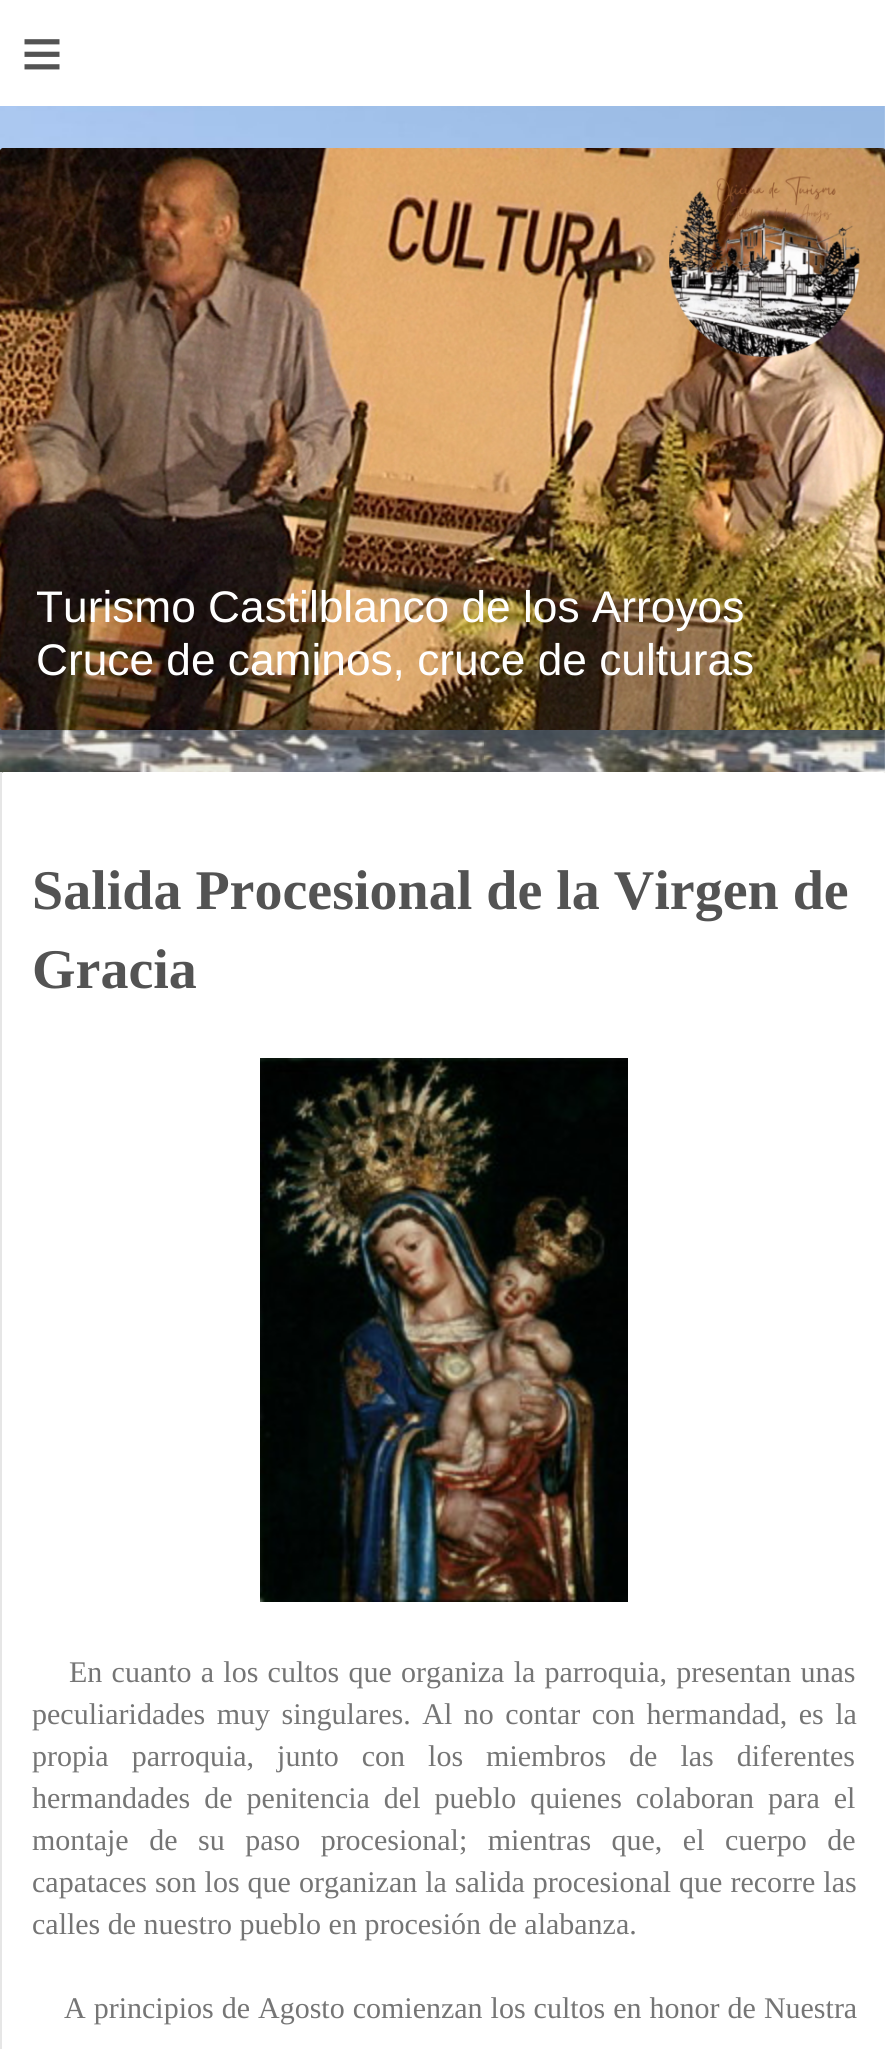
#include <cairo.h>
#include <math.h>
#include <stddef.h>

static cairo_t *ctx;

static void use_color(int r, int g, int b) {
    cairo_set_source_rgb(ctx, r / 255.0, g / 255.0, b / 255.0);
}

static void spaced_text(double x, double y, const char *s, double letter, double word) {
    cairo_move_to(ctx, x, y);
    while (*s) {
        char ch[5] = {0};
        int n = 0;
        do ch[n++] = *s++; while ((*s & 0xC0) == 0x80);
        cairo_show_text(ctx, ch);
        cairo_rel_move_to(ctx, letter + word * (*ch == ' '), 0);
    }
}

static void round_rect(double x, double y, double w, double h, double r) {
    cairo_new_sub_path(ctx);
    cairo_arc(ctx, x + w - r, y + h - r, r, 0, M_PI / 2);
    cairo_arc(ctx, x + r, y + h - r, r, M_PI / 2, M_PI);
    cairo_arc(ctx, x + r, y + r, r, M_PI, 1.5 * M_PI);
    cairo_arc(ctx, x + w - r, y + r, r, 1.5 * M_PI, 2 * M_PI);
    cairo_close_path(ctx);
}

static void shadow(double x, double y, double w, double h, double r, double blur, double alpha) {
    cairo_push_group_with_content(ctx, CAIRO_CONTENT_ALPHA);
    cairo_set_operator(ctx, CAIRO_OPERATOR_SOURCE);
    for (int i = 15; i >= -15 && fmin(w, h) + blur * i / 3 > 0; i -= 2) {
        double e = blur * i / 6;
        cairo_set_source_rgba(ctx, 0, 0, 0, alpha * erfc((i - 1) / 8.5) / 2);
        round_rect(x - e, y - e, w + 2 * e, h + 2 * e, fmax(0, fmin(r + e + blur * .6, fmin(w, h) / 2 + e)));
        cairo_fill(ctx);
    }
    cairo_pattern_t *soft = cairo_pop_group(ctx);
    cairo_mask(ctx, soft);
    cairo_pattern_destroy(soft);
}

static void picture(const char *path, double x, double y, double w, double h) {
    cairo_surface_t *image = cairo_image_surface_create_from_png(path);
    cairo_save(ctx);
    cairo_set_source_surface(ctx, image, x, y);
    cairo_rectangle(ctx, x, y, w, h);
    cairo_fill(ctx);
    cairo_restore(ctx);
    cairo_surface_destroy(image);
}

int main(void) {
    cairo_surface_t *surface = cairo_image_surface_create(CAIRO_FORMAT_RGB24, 885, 2049);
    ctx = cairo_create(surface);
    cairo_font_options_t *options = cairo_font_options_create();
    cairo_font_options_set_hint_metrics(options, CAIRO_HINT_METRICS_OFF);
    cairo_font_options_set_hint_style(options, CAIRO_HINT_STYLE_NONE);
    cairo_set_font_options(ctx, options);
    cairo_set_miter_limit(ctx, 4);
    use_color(255, 255, 255);
    cairo_paint(ctx);
    picture("img1.png", 0, 106, 885, 668);
    cairo_select_font_face(ctx, "Liberation Sans", CAIRO_FONT_SLANT_NORMAL, CAIRO_FONT_WEIGHT_NORMAL);
    cairo_set_font_size(ctx, 72);
    use_color(83, 83, 83);
    spaced_text(21, 78, "≡", 21, 0);
    picture("img2.png", 0, 148, 885, 582);
    use_color(0, 0, 0);
    shadow(0, 752, 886, 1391, 4, 30, 0.1);
    picture("img3.png", 0, 148, 885, 582);
    picture("img4.png", 669, 176, 191, 181);
    cairo_set_font_size(ctx, 44.25);
    use_color(255, 255, 255);
    cairo_move_to(ctx, 36, 622);
    cairo_show_text(ctx, "Turismo Castilblanco de los Arroyos");
    cairo_move_to(ctx, 36, 675);
    cairo_show_text(ctx, "Cruce de caminos, cruce de culturas");
    round_rect(0, 772, 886, 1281, 4);
    cairo_fill(ctx);
    use_color(230, 230, 230);
    cairo_rectangle(ctx, 0, 772, 2, 1277);
    cairo_fill(ctx);
    cairo_select_font_face(ctx, "Liberation Serif", CAIRO_FONT_SLANT_NORMAL, CAIRO_FONT_WEIGHT_BOLD);
    cairo_set_font_size(ctx, 56);
    use_color(83, 83, 83);
    cairo_move_to(ctx, 32, 909);
    cairo_show_text(ctx, "Salida Procesional de la Virgen de");
    cairo_move_to(ctx, 32, 988);
    cairo_show_text(ctx, "Gracia");
    picture("img5.png", 260, 1058, 368, 544);
    cairo_select_font_face(ctx, "Liberation Serif", CAIRO_FONT_SLANT_NORMAL, CAIRO_FONT_WEIGHT_NORMAL);
    cairo_set_font_size(ctx, 30);
    use_color(117, 117, 117);
    spaced_text(69, 1682, "En cuanto a los cultos que organiza la parroquia, presentan unas", 0, 1.75);
    spaced_text(32, 1724, "peculiaridades muy singulares. Al no contar con hermandad, es la", 0, 4);
    spaced_text(32, 1766, "propia parroquia, junto con los miembros de las diferentes", 0, 15.5);
    spaced_text(32, 1808, "hermandades de penitencia del pueblo quienes colaboran para el", 0, 6.5);
    spaced_text(32, 1850, "montaje de su paso procesional; mientras que, el cuerpo de", 0, 13);
    spaced_text(32, 1892, "capataces son los que organizan la salida procesional que recorre las", 0, 0.5);
    cairo_move_to(ctx, 32, 1934);
    cairo_show_text(ctx, "calles de nuestro pueblo en procesión de alabanza.");
    spaced_text(64, 2018, "A principios de Agosto comienzan los cultos en honor de Nuestra", 0, 0.5);
    cairo_surface_write_to_png(surface, "result.png");
    cairo_font_options_destroy(options);
    cairo_destroy(ctx);
    cairo_surface_destroy(surface);
    return 0;
}
